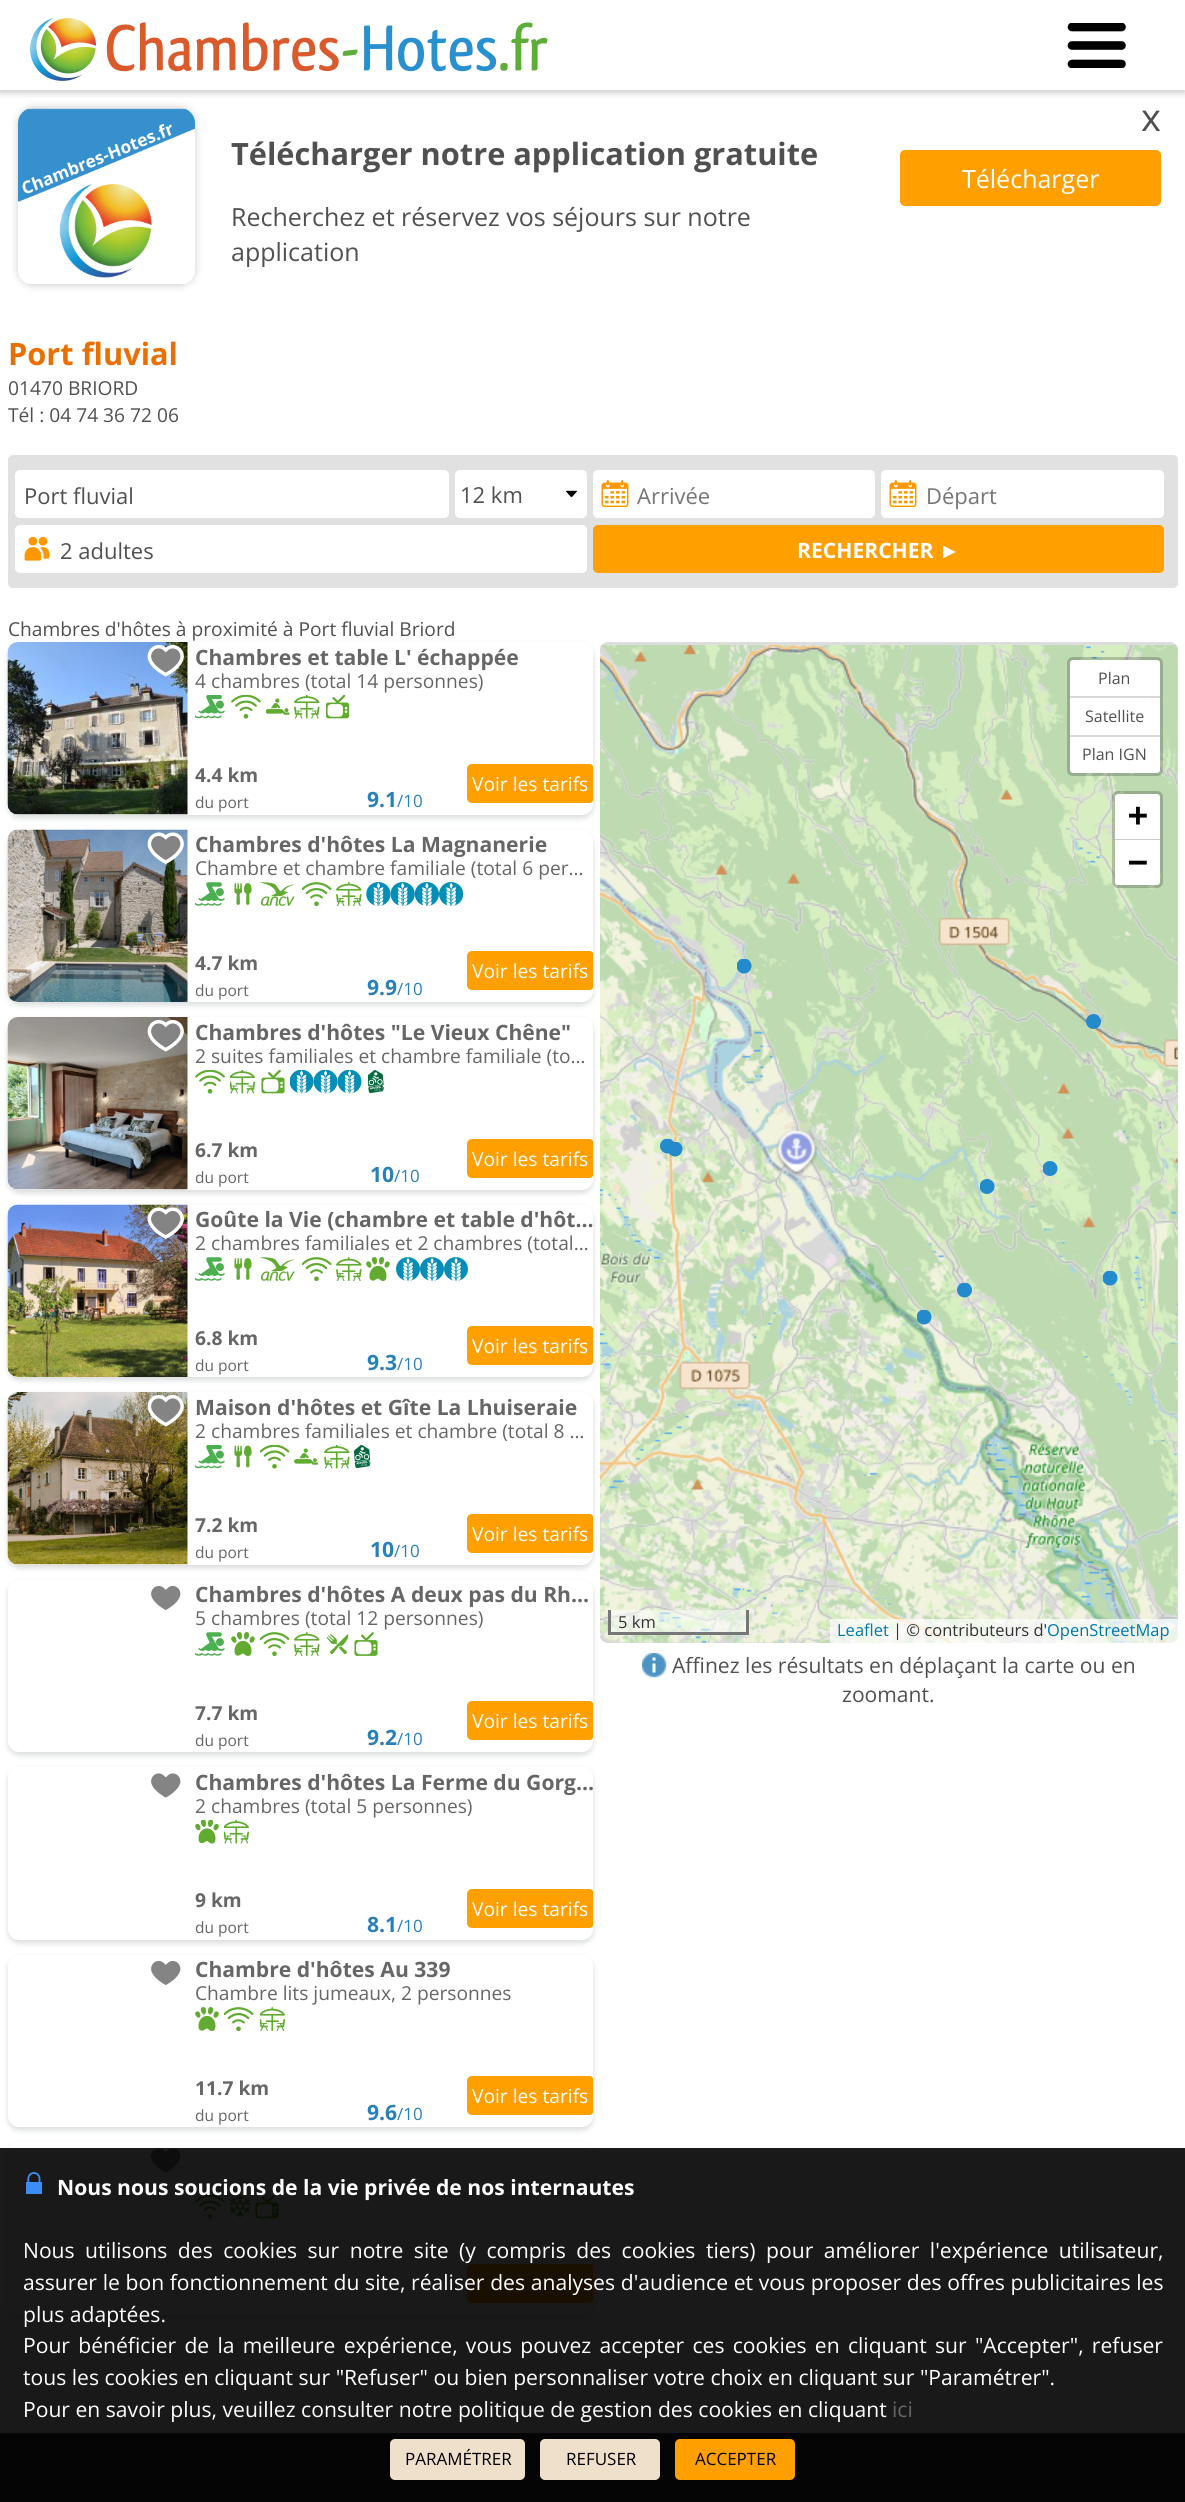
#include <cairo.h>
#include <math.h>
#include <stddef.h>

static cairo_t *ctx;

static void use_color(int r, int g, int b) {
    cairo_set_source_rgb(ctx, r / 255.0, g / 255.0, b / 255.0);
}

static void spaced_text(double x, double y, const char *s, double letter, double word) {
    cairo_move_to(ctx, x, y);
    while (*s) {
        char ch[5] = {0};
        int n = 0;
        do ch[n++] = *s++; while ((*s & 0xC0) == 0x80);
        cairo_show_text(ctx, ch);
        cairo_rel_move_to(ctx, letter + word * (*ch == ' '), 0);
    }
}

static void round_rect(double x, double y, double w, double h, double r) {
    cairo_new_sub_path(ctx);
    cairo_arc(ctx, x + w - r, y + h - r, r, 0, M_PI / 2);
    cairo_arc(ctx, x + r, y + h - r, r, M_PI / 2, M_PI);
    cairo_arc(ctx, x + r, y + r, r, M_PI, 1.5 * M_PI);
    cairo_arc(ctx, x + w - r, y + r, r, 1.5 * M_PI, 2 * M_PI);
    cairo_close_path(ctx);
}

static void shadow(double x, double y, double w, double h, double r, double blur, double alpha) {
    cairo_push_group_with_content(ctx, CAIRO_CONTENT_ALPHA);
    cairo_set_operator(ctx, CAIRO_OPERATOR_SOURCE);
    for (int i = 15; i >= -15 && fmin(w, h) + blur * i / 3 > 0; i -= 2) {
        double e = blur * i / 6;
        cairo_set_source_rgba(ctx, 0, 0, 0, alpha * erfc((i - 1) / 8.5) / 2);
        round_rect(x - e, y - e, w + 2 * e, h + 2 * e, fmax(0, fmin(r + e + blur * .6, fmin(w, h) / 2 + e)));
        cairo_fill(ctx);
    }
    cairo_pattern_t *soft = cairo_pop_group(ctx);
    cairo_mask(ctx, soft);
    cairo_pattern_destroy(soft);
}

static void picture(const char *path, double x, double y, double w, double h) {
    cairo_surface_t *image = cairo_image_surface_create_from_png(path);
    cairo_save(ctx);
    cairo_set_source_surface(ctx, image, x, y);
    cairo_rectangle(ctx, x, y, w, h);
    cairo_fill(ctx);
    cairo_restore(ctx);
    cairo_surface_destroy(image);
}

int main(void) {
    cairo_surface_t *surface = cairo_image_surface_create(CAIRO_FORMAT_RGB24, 1185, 2502);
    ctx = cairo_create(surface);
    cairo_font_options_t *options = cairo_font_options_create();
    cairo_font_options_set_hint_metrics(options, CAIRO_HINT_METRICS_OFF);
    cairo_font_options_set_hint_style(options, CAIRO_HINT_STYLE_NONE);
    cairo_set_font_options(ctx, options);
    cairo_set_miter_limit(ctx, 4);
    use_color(255, 255, 255);
    cairo_paint(ctx);
    cairo_save(ctx);
    cairo_rectangle(ctx, 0, 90, 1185, 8);
    cairo_clip(ctx);
    use_color(0, 0, 0);
    shadow(0, 2, 1185, 90, 0, 4, 0.25);
    cairo_restore(ctx);
    picture("img1.png", 30, 18, 518, 63);
    cairo_save(ctx);
    cairo_rectangle(ctx, 1067, 23, 60, 45);
    cairo_clip(ctx);
    cairo_new_path(ctx);
    cairo_move_to(ctx, 1072, 27);
    cairo_line_to(ctx, 1121.5, 27);
    cairo_move_to(ctx, 1072, 45.5);
    cairo_line_to(ctx, 1121.5, 45.5);
    cairo_move_to(ctx, 1072, 64);
    cairo_line_to(ctx, 1121.5, 64);
    use_color(0, 0, 0);
    cairo_set_line_width(ctx, 8.6);
    cairo_set_line_cap(ctx, CAIRO_LINE_CAP_ROUND);
    cairo_set_line_join(ctx, CAIRO_LINE_JOIN_ROUND);
    cairo_stroke(ctx);
    cairo_restore(ctx);
    use_color(204, 204, 204);
    shadow(18, 108, 177, 177, 15, 4, 1);
    picture("img2.png", 18, 108, 177, 176);
    cairo_select_font_face(ctx, "Open Sans", CAIRO_FONT_SLANT_NORMAL, CAIRO_FONT_WEIGHT_BOLD);
    cairo_set_font_size(ctx, 30.75);
    use_color(80, 80, 80);
    cairo_move_to(ctx, 231, 165);
    cairo_show_text(ctx, "Télécharger notre application gratuite");
    cairo_select_font_face(ctx, "Open Sans", CAIRO_FONT_SLANT_NORMAL, CAIRO_FONT_WEIGHT_NORMAL);
    cairo_set_font_size(ctx, 25);
    cairo_move_to(ctx, 231, 226);
    cairo_show_text(ctx, "Recherchez et réservez vos séjours sur notre");
    cairo_move_to(ctx, 231, 261);
    cairo_show_text(ctx, "application");
    cairo_set_font_size(ctx, 38);
    cairo_move_to(ctx, 1141, 131);
    cairo_show_text(ctx, "x");
    use_color(255, 160, 0);
    round_rect(900, 150, 261, 56, 5);
    cairo_fill(ctx);
    cairo_set_font_size(ctx, 25);
    use_color(255, 255, 255);
    cairo_move_to(ctx, 962, 188);
    cairo_show_text(ctx, "Télécharger");
    cairo_select_font_face(ctx, "Open Sans", CAIRO_FONT_SLANT_NORMAL, CAIRO_FONT_WEIGHT_BOLD);
    cairo_set_font_size(ctx, 30.75);
    use_color(234, 111, 3);
    cairo_move_to(ctx, 8, 365);
    cairo_show_text(ctx, "Port fluvial");
    cairo_select_font_face(ctx, "Open Sans", CAIRO_FONT_SLANT_NORMAL, CAIRO_FONT_WEIGHT_NORMAL);
    cairo_set_font_size(ctx, 19.2);
    use_color(80, 80, 80);
    cairo_move_to(ctx, 8, 395);
    cairo_show_text(ctx, "01470 BRIORD");
    cairo_move_to(ctx, 8, 422);
    cairo_show_text(ctx, "Tél : 04 74 36 72 06");
    use_color(225, 225, 225);
    round_rect(8, 455, 1170, 133, 5);
    cairo_fill(ctx);
    use_color(255, 255, 255);
    round_rect(15, 470, 434, 48, 5);
    cairo_fill(ctx);
    cairo_set_font_size(ctx, 22);
    use_color(80, 80, 80);
    cairo_move_to(ctx, 24, 504);
    cairo_show_text(ctx, "Port fluvial");
    use_color(255, 255, 255);
    round_rect(455, 470, 132, 48, 5);
    cairo_fill(ctx);
    picture("img3.png", 566, 490, 11, 7);
    use_color(80, 80, 80);
    cairo_move_to(ctx, 460, 503);
    cairo_show_text(ctx, "12 km");
    use_color(255, 255, 255);
    round_rect(593, 470, 282, 48, 5);
    cairo_fill(ctx);
    picture("img4.png", 601, 480, 28, 27);
    use_color(117, 117, 117);
    cairo_move_to(ctx, 637, 504);
    cairo_show_text(ctx, "Arrivée");
    use_color(255, 255, 255);
    round_rect(881, 470, 283, 48, 5);
    cairo_fill(ctx);
    picture("img4.png", 889, 480, 28, 27);
    use_color(117, 117, 117);
    cairo_move_to(ctx, 926, 504);
    cairo_show_text(ctx, "Départ");
    use_color(255, 255, 255);
    round_rect(15, 525, 572, 48, 5);
    cairo_fill(ctx);
    picture("img5.png", 24, 536, 26, 25);
    use_color(80, 80, 80);
    cairo_move_to(ctx, 60, 559);
    cairo_show_text(ctx, "2 adultes");
    use_color(255, 160, 0);
    round_rect(593, 525, 571, 48, 5);
    cairo_fill(ctx);
    cairo_select_font_face(ctx, "Open Sans", CAIRO_FONT_SLANT_NORMAL, CAIRO_FONT_WEIGHT_BOLD);
    cairo_set_font_size(ctx, 21.12);
    use_color(255, 255, 255);
    cairo_move_to(ctx, 797, 558);
    cairo_show_text(ctx, "RECHERCHER");
    cairo_select_font_face(ctx, "Liberation Sans", CAIRO_FONT_SLANT_NORMAL, CAIRO_FONT_WEIGHT_BOLD);
    cairo_move_to(ctx, 939, 558);
    cairo_show_text(ctx, "►");
    cairo_select_font_face(ctx, "Open Sans", CAIRO_FONT_SLANT_NORMAL, CAIRO_FONT_WEIGHT_NORMAL);
    cairo_set_font_size(ctx, 19.2);
    use_color(80, 80, 80);
    cairo_move_to(ctx, 8, 636);
    cairo_show_text(ctx, "Chambres d'hôtes à proximité à Port fluvial Briord");
    use_color(6, 31, 24);
    shadow(8, 645, 585, 173, 11, 3, 0.16);
    use_color(255, 255, 255);
    round_rect(8, 642, 585, 173, 11);
    cairo_fill(ctx);
    picture("img6.png", 7, 642, 181, 173);
    picture("img7.png", 147, 644, 37, 33);
    cairo_select_font_face(ctx, "Open Sans", CAIRO_FONT_SLANT_NORMAL, CAIRO_FONT_WEIGHT_BOLD);
    cairo_set_font_size(ctx, 21.12);
    use_color(102, 102, 102);
    cairo_move_to(ctx, 195, 665);
    cairo_show_text(ctx, "Chambres et table L' échappée");
    cairo_select_font_face(ctx, "Open Sans", CAIRO_FONT_SLANT_NORMAL, CAIRO_FONT_WEIGHT_NORMAL);
    cairo_set_font_size(ctx, 19.2);
    cairo_move_to(ctx, 195, 688);
    cairo_show_text(ctx, "4 chambres (total 14 personnes)");
    picture("img8.png", 195, 695, 30, 24);
    picture("img9.png", 231, 695, 30, 24);
    picture("img10.png", 266, 698, 24, 17);
    picture("img11.png", 294, 695, 26, 24);
    picture("img12.png", 326, 695, 24, 24);
    cairo_select_font_face(ctx, "Open Sans", CAIRO_FONT_SLANT_NORMAL, CAIRO_FONT_WEIGHT_BOLD);
    cairo_move_to(ctx, 195, 782);
    cairo_show_text(ctx, "4.4 km");
    cairo_select_font_face(ctx, "Open Sans", CAIRO_FONT_SLANT_NORMAL, CAIRO_FONT_WEIGHT_NORMAL);
    cairo_set_font_size(ctx, 15.5);
    cairo_move_to(ctx, 195, 808);
    cairo_show_text(ctx, "du port");
    cairo_save(ctx);
    round_rect(8, 642, 585, 173, 11);
    cairo_clip(ctx);
    use_color(255, 160, 0);
    round_rect(467, 764, 127, 39, 5);
    cairo_fill(ctx);
    cairo_restore(ctx);
    cairo_set_font_size(ctx, 19.2);
    use_color(255, 255, 255);
    cairo_move_to(ctx, 472, 791);
    cairo_show_text(ctx, "Voir les tarifs");
    cairo_select_font_face(ctx, "Open Sans", CAIRO_FONT_SLANT_NORMAL, CAIRO_FONT_WEIGHT_BOLD);
    cairo_set_font_size(ctx, 21.12);
    use_color(41, 128, 185);
    cairo_move_to(ctx, 367, 807);
    cairo_show_text(ctx, "9.1");
    cairo_select_font_face(ctx, "Open Sans", CAIRO_FONT_SLANT_NORMAL, CAIRO_FONT_WEIGHT_NORMAL);
    cairo_set_font_size(ctx, 17);
    cairo_move_to(ctx, 397, 807);
    cairo_show_text(ctx, "/10");
    use_color(6, 31, 24);
    shadow(8, 833, 585, 172, 11, 3, 0.16);
    use_color(255, 255, 255);
    round_rect(8, 830, 585, 172, 11);
    cairo_fill(ctx);
    picture("img13.png", 7, 829, 181, 173);
    picture("img14.png", 147, 832, 37, 32);
    cairo_select_font_face(ctx, "Open Sans", CAIRO_FONT_SLANT_NORMAL, CAIRO_FONT_WEIGHT_BOLD);
    cairo_set_font_size(ctx, 21.12);
    use_color(102, 102, 102);
    cairo_move_to(ctx, 195, 852);
    cairo_show_text(ctx, "Chambres d'hôtes La Magnanerie");
    cairo_select_font_face(ctx, "Open Sans", CAIRO_FONT_SLANT_NORMAL, CAIRO_FONT_WEIGHT_NORMAL);
    cairo_set_font_size(ctx, 19.2);
    cairo_move_to(ctx, 195, 875);
    cairo_show_text(ctx, "Chambre et chambre familiale (total 6 per…");
    picture("img15.png", 195, 882, 30, 24);
    picture("img16.png", 234, 883, 18, 22);
    picture("img17.png", 260, 882, 35, 24);
    picture("img18.png", 302, 882, 30, 24);
    picture("img19.png", 336, 882, 26, 24);
    picture("img20.png", 366, 882, 98, 24);
    cairo_select_font_face(ctx, "Open Sans", CAIRO_FONT_SLANT_NORMAL, CAIRO_FONT_WEIGHT_BOLD);
    cairo_move_to(ctx, 195, 970);
    cairo_show_text(ctx, "4.7 km");
    cairo_select_font_face(ctx, "Open Sans", CAIRO_FONT_SLANT_NORMAL, CAIRO_FONT_WEIGHT_NORMAL);
    cairo_set_font_size(ctx, 15.5);
    cairo_move_to(ctx, 195, 996);
    cairo_show_text(ctx, "du port");
    cairo_save(ctx);
    round_rect(8, 830, 585, 172, 11);
    cairo_clip(ctx);
    use_color(255, 160, 0);
    round_rect(467, 951, 127, 39, 5);
    cairo_fill(ctx);
    cairo_restore(ctx);
    cairo_set_font_size(ctx, 19.2);
    use_color(255, 255, 255);
    cairo_move_to(ctx, 472, 978);
    cairo_show_text(ctx, "Voir les tarifs");
    cairo_select_font_face(ctx, "Open Sans", CAIRO_FONT_SLANT_NORMAL, CAIRO_FONT_WEIGHT_BOLD);
    cairo_set_font_size(ctx, 21.12);
    use_color(41, 128, 185);
    cairo_move_to(ctx, 367, 995);
    cairo_show_text(ctx, "9.9");
    cairo_select_font_face(ctx, "Open Sans", CAIRO_FONT_SLANT_NORMAL, CAIRO_FONT_WEIGHT_NORMAL);
    cairo_set_font_size(ctx, 17);
    cairo_move_to(ctx, 397, 995);
    cairo_show_text(ctx, "/10");
    use_color(6, 31, 24);
    shadow(8, 1020, 585, 173, 11, 3, 0.16);
    use_color(255, 255, 255);
    round_rect(8, 1017, 585, 173, 11);
    cairo_fill(ctx);
    picture("img21.png", 7, 1017, 181, 173);
    picture("img22.png", 147, 1019, 37, 33);
    cairo_select_font_face(ctx, "Open Sans", CAIRO_FONT_SLANT_NORMAL, CAIRO_FONT_WEIGHT_BOLD);
    cairo_set_font_size(ctx, 21.12);
    use_color(102, 102, 102);
    cairo_move_to(ctx, 195, 1040);
    cairo_show_text(ctx, "Chambres d'hôtes \"Le Vieux Chêne\"");
    cairo_select_font_face(ctx, "Open Sans", CAIRO_FONT_SLANT_NORMAL, CAIRO_FONT_WEIGHT_NORMAL);
    cairo_set_font_size(ctx, 19.2);
    cairo_move_to(ctx, 195, 1063);
    cairo_show_text(ctx, "2 suites familiales et chambre familiale (to…");
    picture("img9.png", 195, 1070, 30, 24);
    picture("img23.png", 230, 1070, 25, 24);
    picture("img24.png", 261, 1070, 24, 24);
    picture("img25.png", 290, 1070, 72, 24);
    picture("img26.png", 368, 1070, 16, 24);
    cairo_select_font_face(ctx, "Open Sans", CAIRO_FONT_SLANT_NORMAL, CAIRO_FONT_WEIGHT_BOLD);
    cairo_move_to(ctx, 195, 1157);
    cairo_show_text(ctx, "6.7 km");
    cairo_select_font_face(ctx, "Open Sans", CAIRO_FONT_SLANT_NORMAL, CAIRO_FONT_WEIGHT_NORMAL);
    cairo_set_font_size(ctx, 15.5);
    cairo_move_to(ctx, 195, 1183);
    cairo_show_text(ctx, "du port");
    cairo_save(ctx);
    round_rect(8, 1017, 585, 173, 11);
    cairo_clip(ctx);
    use_color(255, 160, 0);
    round_rect(467, 1139, 127, 39, 5);
    cairo_fill(ctx);
    cairo_restore(ctx);
    cairo_set_font_size(ctx, 19.2);
    use_color(255, 255, 255);
    cairo_move_to(ctx, 472, 1166);
    cairo_show_text(ctx, "Voir les tarifs");
    cairo_select_font_face(ctx, "Open Sans", CAIRO_FONT_SLANT_NORMAL, CAIRO_FONT_WEIGHT_BOLD);
    cairo_set_font_size(ctx, 21.12);
    use_color(41, 128, 185);
    cairo_move_to(ctx, 370, 1182);
    cairo_show_text(ctx, "10");
    cairo_select_font_face(ctx, "Open Sans", CAIRO_FONT_SLANT_NORMAL, CAIRO_FONT_WEIGHT_NORMAL);
    cairo_set_font_size(ctx, 17);
    cairo_move_to(ctx, 394, 1182);
    cairo_show_text(ctx, "/10");
    use_color(6, 31, 24);
    shadow(8, 1208, 585, 172, 11, 3, 0.16);
    use_color(255, 255, 255);
    round_rect(8, 1205, 585, 172, 11);
    cairo_fill(ctx);
    picture("img27.png", 7, 1204, 181, 173);
    picture("img28.png", 147, 1207, 37, 32);
    cairo_select_font_face(ctx, "Open Sans", CAIRO_FONT_SLANT_NORMAL, CAIRO_FONT_WEIGHT_BOLD);
    cairo_set_font_size(ctx, 21.12);
    use_color(102, 102, 102);
    cairo_move_to(ctx, 195, 1227);
    cairo_show_text(ctx, "Goûte la Vie (chambre et table d'hôt…");
    cairo_select_font_face(ctx, "Open Sans", CAIRO_FONT_SLANT_NORMAL, CAIRO_FONT_WEIGHT_NORMAL);
    cairo_set_font_size(ctx, 19.2);
    cairo_move_to(ctx, 195, 1250);
    cairo_show_text(ctx, "2 chambres familiales et 2 chambres (total…");
    picture("img15.png", 195, 1257, 30, 24);
    picture("img16.png", 234, 1258, 18, 22);
    picture("img17.png", 260, 1257, 35, 24);
    picture("img18.png", 302, 1257, 30, 24);
    picture("img19.png", 336, 1257, 26, 24);
    picture("img29.png", 366, 1257, 24, 24);
    picture("img30.png", 396, 1257, 72, 24);
    cairo_select_font_face(ctx, "Open Sans", CAIRO_FONT_SLANT_NORMAL, CAIRO_FONT_WEIGHT_BOLD);
    cairo_move_to(ctx, 195, 1345);
    cairo_show_text(ctx, "6.8 km");
    cairo_select_font_face(ctx, "Open Sans", CAIRO_FONT_SLANT_NORMAL, CAIRO_FONT_WEIGHT_NORMAL);
    cairo_set_font_size(ctx, 15.5);
    cairo_move_to(ctx, 195, 1371);
    cairo_show_text(ctx, "du port");
    cairo_save(ctx);
    round_rect(8, 1205, 585, 172, 11);
    cairo_clip(ctx);
    use_color(255, 160, 0);
    round_rect(467, 1326, 127, 39, 5);
    cairo_fill(ctx);
    cairo_restore(ctx);
    cairo_set_font_size(ctx, 19.2);
    use_color(255, 255, 255);
    cairo_move_to(ctx, 472, 1353);
    cairo_show_text(ctx, "Voir les tarifs");
    cairo_select_font_face(ctx, "Open Sans", CAIRO_FONT_SLANT_NORMAL, CAIRO_FONT_WEIGHT_BOLD);
    cairo_set_font_size(ctx, 21.12);
    use_color(41, 128, 185);
    cairo_move_to(ctx, 367, 1370);
    cairo_show_text(ctx, "9.3");
    cairo_select_font_face(ctx, "Open Sans", CAIRO_FONT_SLANT_NORMAL, CAIRO_FONT_WEIGHT_NORMAL);
    cairo_set_font_size(ctx, 17);
    cairo_move_to(ctx, 397, 1370);
    cairo_show_text(ctx, "/10");
    use_color(6, 31, 24);
    shadow(8, 1395, 585, 173, 11, 3, 0.16);
    use_color(255, 255, 255);
    round_rect(8, 1392, 585, 173, 11);
    cairo_fill(ctx);
    picture("img31.png", 7, 1392, 181, 173);
    picture("img32.png", 147, 1394, 37, 33);
    cairo_select_font_face(ctx, "Open Sans", CAIRO_FONT_SLANT_NORMAL, CAIRO_FONT_WEIGHT_BOLD);
    cairo_set_font_size(ctx, 21.12);
    use_color(102, 102, 102);
    cairo_move_to(ctx, 195, 1415);
    cairo_show_text(ctx, "Maison d'hôtes et Gîte La Lhuiseraie");
    cairo_select_font_face(ctx, "Open Sans", CAIRO_FONT_SLANT_NORMAL, CAIRO_FONT_WEIGHT_NORMAL);
    cairo_set_font_size(ctx, 19.2);
    cairo_move_to(ctx, 195, 1438);
    cairo_show_text(ctx, "2 chambres familiales et chambre (total 8 …");
    picture("img8.png", 195, 1445, 30, 24);
    picture("img33.png", 234, 1445, 18, 23);
    picture("img34.png", 260, 1445, 30, 24);
    picture("img35.png", 294, 1448, 24, 17);
    picture("img11.png", 324, 1445, 26, 24);
    picture("img36.png", 354, 1445, 17, 24);
    cairo_select_font_face(ctx, "Open Sans", CAIRO_FONT_SLANT_NORMAL, CAIRO_FONT_WEIGHT_BOLD);
    cairo_move_to(ctx, 195, 1532);
    cairo_show_text(ctx, "7.2 km");
    cairo_select_font_face(ctx, "Open Sans", CAIRO_FONT_SLANT_NORMAL, CAIRO_FONT_WEIGHT_NORMAL);
    cairo_set_font_size(ctx, 15.5);
    cairo_move_to(ctx, 195, 1558);
    cairo_show_text(ctx, "du port");
    cairo_save(ctx);
    round_rect(8, 1392, 585, 173, 11);
    cairo_clip(ctx);
    use_color(255, 160, 0);
    round_rect(467, 1514, 127, 39, 5);
    cairo_fill(ctx);
    cairo_restore(ctx);
    cairo_set_font_size(ctx, 19.2);
    use_color(255, 255, 255);
    cairo_move_to(ctx, 472, 1541);
    cairo_show_text(ctx, "Voir les tarifs");
    cairo_select_font_face(ctx, "Open Sans", CAIRO_FONT_SLANT_NORMAL, CAIRO_FONT_WEIGHT_BOLD);
    cairo_set_font_size(ctx, 21.12);
    use_color(41, 128, 185);
    cairo_move_to(ctx, 370, 1557);
    cairo_show_text(ctx, "10");
    cairo_select_font_face(ctx, "Open Sans", CAIRO_FONT_SLANT_NORMAL, CAIRO_FONT_WEIGHT_NORMAL);
    cairo_set_font_size(ctx, 17);
    cairo_move_to(ctx, 394, 1557);
    cairo_show_text(ctx, "/10");
    use_color(6, 31, 24);
    shadow(8, 1583, 585, 172, 11, 3, 0.16);
    use_color(255, 255, 255);
    round_rect(8, 1580, 585, 172, 11);
    cairo_fill(ctx);
    picture("img37.png", 151, 1585, 30, 25);
    cairo_select_font_face(ctx, "Open Sans", CAIRO_FONT_SLANT_NORMAL, CAIRO_FONT_WEIGHT_BOLD);
    cairo_set_font_size(ctx, 21.12);
    use_color(102, 102, 102);
    cairo_move_to(ctx, 195, 1602);
    cairo_show_text(ctx, "Chambres d'hôtes A deux pas du Rh…");
    cairo_select_font_face(ctx, "Open Sans", CAIRO_FONT_SLANT_NORMAL, CAIRO_FONT_WEIGHT_NORMAL);
    cairo_set_font_size(ctx, 19.2);
    cairo_move_to(ctx, 195, 1625);
    cairo_show_text(ctx, "5 chambres (total 12 personnes)");
    picture("img15.png", 195, 1632, 30, 24);
    picture("img29.png", 231, 1632, 24, 24);
    picture("img18.png", 260, 1632, 30, 24);
    picture("img19.png", 294, 1632, 26, 24);
    picture("img38.png", 326, 1633, 23, 22);
    picture("img39.png", 354, 1632, 24, 24);
    cairo_select_font_face(ctx, "Open Sans", CAIRO_FONT_SLANT_NORMAL, CAIRO_FONT_WEIGHT_BOLD);
    cairo_move_to(ctx, 195, 1720);
    cairo_show_text(ctx, "7.7 km");
    cairo_select_font_face(ctx, "Open Sans", CAIRO_FONT_SLANT_NORMAL, CAIRO_FONT_WEIGHT_NORMAL);
    cairo_set_font_size(ctx, 15.5);
    cairo_move_to(ctx, 195, 1746);
    cairo_show_text(ctx, "du port");
    cairo_save(ctx);
    round_rect(8, 1580, 585, 172, 11);
    cairo_clip(ctx);
    use_color(255, 160, 0);
    round_rect(467, 1701, 127, 39, 5);
    cairo_fill(ctx);
    cairo_restore(ctx);
    cairo_set_font_size(ctx, 19.2);
    use_color(255, 255, 255);
    cairo_move_to(ctx, 472, 1728);
    cairo_show_text(ctx, "Voir les tarifs");
    cairo_select_font_face(ctx, "Open Sans", CAIRO_FONT_SLANT_NORMAL, CAIRO_FONT_WEIGHT_BOLD);
    cairo_set_font_size(ctx, 21.12);
    use_color(41, 128, 185);
    cairo_move_to(ctx, 367, 1745);
    cairo_show_text(ctx, "9.2");
    cairo_select_font_face(ctx, "Open Sans", CAIRO_FONT_SLANT_NORMAL, CAIRO_FONT_WEIGHT_NORMAL);
    cairo_set_font_size(ctx, 17);
    cairo_move_to(ctx, 397, 1745);
    cairo_show_text(ctx, "/10");
    use_color(6, 31, 24);
    shadow(8, 1770, 585, 173, 11, 3, 0.16);
    use_color(255, 255, 255);
    round_rect(8, 1767, 585, 173, 11);
    cairo_fill(ctx);
    picture("img40.png", 151, 1773, 30, 25);
    cairo_select_font_face(ctx, "Open Sans", CAIRO_FONT_SLANT_NORMAL, CAIRO_FONT_WEIGHT_BOLD);
    cairo_set_font_size(ctx, 21.12);
    use_color(102, 102, 102);
    cairo_move_to(ctx, 195, 1790);
    cairo_show_text(ctx, "Chambres d'hôtes La Ferme du Gorg…");
    cairo_select_font_face(ctx, "Open Sans", CAIRO_FONT_SLANT_NORMAL, CAIRO_FONT_WEIGHT_NORMAL);
    cairo_set_font_size(ctx, 19.2);
    cairo_move_to(ctx, 195, 1813);
    cairo_show_text(ctx, "2 chambres (total 5 personnes)");
    picture("img41.png", 195, 1820, 24, 24);
    picture("img23.png", 224, 1820, 25, 24);
    cairo_select_font_face(ctx, "Open Sans", CAIRO_FONT_SLANT_NORMAL, CAIRO_FONT_WEIGHT_BOLD);
    cairo_move_to(ctx, 195, 1907);
    cairo_show_text(ctx, "9 km");
    cairo_select_font_face(ctx, "Open Sans", CAIRO_FONT_SLANT_NORMAL, CAIRO_FONT_WEIGHT_NORMAL);
    cairo_set_font_size(ctx, 15.5);
    cairo_move_to(ctx, 195, 1933);
    cairo_show_text(ctx, "du port");
    cairo_save(ctx);
    round_rect(8, 1767, 585, 173, 11);
    cairo_clip(ctx);
    use_color(255, 160, 0);
    round_rect(467, 1889, 127, 39, 5);
    cairo_fill(ctx);
    cairo_restore(ctx);
    cairo_set_font_size(ctx, 19.2);
    use_color(255, 255, 255);
    cairo_move_to(ctx, 472, 1916);
    cairo_show_text(ctx, "Voir les tarifs");
    cairo_select_font_face(ctx, "Open Sans", CAIRO_FONT_SLANT_NORMAL, CAIRO_FONT_WEIGHT_BOLD);
    cairo_set_font_size(ctx, 21.12);
    use_color(41, 128, 185);
    cairo_move_to(ctx, 367, 1932);
    cairo_show_text(ctx, "8.1");
    cairo_select_font_face(ctx, "Open Sans", CAIRO_FONT_SLANT_NORMAL, CAIRO_FONT_WEIGHT_NORMAL);
    cairo_set_font_size(ctx, 17);
    cairo_move_to(ctx, 397, 1932);
    cairo_show_text(ctx, "/10");
    use_color(6, 31, 24);
    shadow(8, 1958, 585, 172, 11, 3, 0.16);
    use_color(255, 255, 255);
    round_rect(8, 1955, 585, 172, 11);
    cairo_fill(ctx);
    picture("img37.png", 151, 1960, 30, 25);
    cairo_select_font_face(ctx, "Open Sans", CAIRO_FONT_SLANT_NORMAL, CAIRO_FONT_WEIGHT_BOLD);
    cairo_set_font_size(ctx, 21.12);
    use_color(102, 102, 102);
    cairo_move_to(ctx, 195, 1977);
    cairo_show_text(ctx, "Chambre d'hôtes Au 339");
    cairo_select_font_face(ctx, "Open Sans", CAIRO_FONT_SLANT_NORMAL, CAIRO_FONT_WEIGHT_NORMAL);
    cairo_set_font_size(ctx, 19.2);
    cairo_move_to(ctx, 195, 2000);
    cairo_show_text(ctx, "Chambre lits jumeaux, 2 personnes");
    picture("img29.png", 195, 2007, 24, 24);
    picture("img18.png", 224, 2007, 30, 24);
    picture("img42.png", 260, 2007, 25, 24);
    cairo_select_font_face(ctx, "Open Sans", CAIRO_FONT_SLANT_NORMAL, CAIRO_FONT_WEIGHT_BOLD);
    cairo_move_to(ctx, 195, 2095);
    cairo_show_text(ctx, "11.7 km");
    cairo_select_font_face(ctx, "Open Sans", CAIRO_FONT_SLANT_NORMAL, CAIRO_FONT_WEIGHT_NORMAL);
    cairo_set_font_size(ctx, 15.5);
    cairo_move_to(ctx, 195, 2121);
    cairo_show_text(ctx, "du port");
    cairo_save(ctx);
    round_rect(8, 1955, 585, 172, 11);
    cairo_clip(ctx);
    use_color(255, 160, 0);
    round_rect(467, 2076, 127, 39, 5);
    cairo_fill(ctx);
    cairo_restore(ctx);
    cairo_set_font_size(ctx, 19.2);
    use_color(255, 255, 255);
    cairo_move_to(ctx, 472, 2103);
    cairo_show_text(ctx, "Voir les tarifs");
    cairo_select_font_face(ctx, "Open Sans", CAIRO_FONT_SLANT_NORMAL, CAIRO_FONT_WEIGHT_BOLD);
    cairo_set_font_size(ctx, 21.12);
    use_color(41, 128, 185);
    cairo_move_to(ctx, 367, 2120);
    cairo_show_text(ctx, "9.6");
    cairo_select_font_face(ctx, "Open Sans", CAIRO_FONT_SLANT_NORMAL, CAIRO_FONT_WEIGHT_NORMAL);
    cairo_set_font_size(ctx, 17);
    cairo_move_to(ctx, 397, 2120);
    cairo_show_text(ctx, "/10");
    use_color(6, 31, 24);
    shadow(8, 2145, 585, 173, 11, 3, 0.16);
    use_color(255, 255, 255);
    round_rect(8, 2142, 585, 173, 11);
    cairo_fill(ctx);
    picture("img40.png", 151, 2148, 30, 25);
    picture("img9.png", 195, 2195, 30, 24);
    picture("img43.png", 230, 2195, 20, 23);
    picture("img24.png", 255, 2195, 24, 24);
    cairo_save(ctx);
    round_rect(8, 2142, 585, 173, 11);
    cairo_clip(ctx);
    use_color(255, 160, 0);
    round_rect(467, 2264, 127, 39, 5);
    cairo_fill(ctx);
    cairo_restore(ctx);
    use_color(221, 221, 221);
    round_rect(600, 642, 578, 1001, 8);
    cairo_fill(ctx);
    picture("img44.png", 600, 645, 177, 384);
    picture("img45.png", 777, 645, 384, 384);
    picture("img46.png", 1161, 645, 17, 384);
    picture("img47.png", 600, 1029, 177, 384);
    picture("img48.png", 777, 1029, 384, 384);
    picture("img49.png", 1161, 1029, 17, 385);
    picture("img50.png", 600, 1413, 177, 230);
    picture("img51.png", 777, 1413, 384, 230);
    picture("img52.png", 1161, 1413, 17, 230);
    cairo_save(ctx);
    cairo_rectangle(ctx, 737, 959, 15, 15);
    cairo_clip(ctx);
    use_color(35, 139, 203);
    cairo_arc(ctx, 744, 966, 7.5, 0, 2 * M_PI);
    cairo_fill(ctx);
    cairo_restore(ctx);
    use_color(35, 139, 203);
    cairo_arc(ctx, 1093.5, 1021.5, 7.5, 0, 2 * M_PI);
    cairo_fill(ctx);
    cairo_save(ctx);
    cairo_rectangle(ctx, 668, 1142, 15, 15);
    cairo_clip(ctx);
    cairo_arc(ctx, 675, 1149, 7.5, 0, 2 * M_PI);
    cairo_fill(ctx);
    cairo_restore(ctx);
    cairo_save(ctx);
    cairo_rectangle(ctx, 660, 1139, 15, 15);
    cairo_clip(ctx);
    cairo_arc(ctx, 667.5, 1146, 7.5, 0, 2 * M_PI);
    cairo_fill(ctx);
    cairo_restore(ctx);
    picture("img53.png", 775, 1129, 43, 47);
    cairo_save(ctx);
    cairo_rectangle(ctx, 1043, 1161, 15, 15);
    cairo_clip(ctx);
    cairo_arc(ctx, 1050, 1168.5, 7.5, 0, 2 * M_PI);
    cairo_fill(ctx);
    cairo_restore(ctx);
    cairo_save(ctx);
    cairo_rectangle(ctx, 980, 1179, 15, 15);
    cairo_clip(ctx);
    cairo_arc(ctx, 987, 1186.5, 7.5, 0, 2 * M_PI);
    cairo_fill(ctx);
    cairo_restore(ctx);
    cairo_save(ctx);
    cairo_rectangle(ctx, 1103, 1271, 15, 15);
    cairo_clip(ctx);
    cairo_arc(ctx, 1110, 1278, 7.5, 0, 2 * M_PI);
    cairo_fill(ctx);
    cairo_restore(ctx);
    cairo_save(ctx);
    cairo_rectangle(ctx, 957, 1283, 15, 15);
    cairo_clip(ctx);
    cairo_arc(ctx, 964.5, 1290, 7.5, 0, 2 * M_PI);
    cairo_fill(ctx);
    cairo_restore(ctx);
    cairo_save(ctx);
    cairo_rectangle(ctx, 917, 1310, 15, 15);
    cairo_clip(ctx);
    cairo_arc(ctx, 924, 1317, 7.5, 0, 2 * M_PI);
    cairo_fill(ctx);
    cairo_restore(ctx);
    use_color(255, 255, 255);
    round_rect(1070, 660, 90, 113, 3);
    cairo_fill(ctx);
    round_rect(1068.5, 658.5, 93, 116, 4.5);
    cairo_set_source_rgba(ctx, 0, 0, 0, 0.2);
    cairo_set_line_width(ctx, 3);
    cairo_stroke(ctx);
    use_color(216, 216, 216);
    cairo_rectangle(ctx, 1070, 696, 90, 2);
    cairo_fill(ctx);
    cairo_set_font_size(ctx, 16);
    use_color(80, 80, 80);
    cairo_move_to(ctx, 1098, 684);
    cairo_show_text(ctx, "Plan");
    use_color(216, 216, 216);
    cairo_rectangle(ctx, 1070, 735, 90, 2);
    cairo_fill(ctx);
    use_color(80, 80, 80);
    cairo_move_to(ctx, 1085, 722);
    cairo_show_text(ctx, "Satellite");
    cairo_move_to(ctx, 1082, 760);
    cairo_show_text(ctx, "Plan IGN");
    round_rect(1113.5, 792.5, 48, 94, 4.5);
    cairo_set_source_rgba(ctx, 0, 0, 0, 0.2);
    cairo_stroke(ctx);
    use_color(255, 255, 255);
    cairo_new_path(ctx);
    cairo_move_to(ctx, 1118, 794);
    cairo_line_to(ctx, 1157, 794);
    cairo_curve_to(ctx, 1158.5, 794, 1160, 795.5, 1160, 797);
    cairo_line_to(ctx, 1160, 840);
    cairo_line_to(ctx, 1115, 840);
    cairo_line_to(ctx, 1115, 797);
    cairo_curve_to(ctx, 1115, 795.5, 1116.5, 794, 1118, 794);
    cairo_close_path(ctx);
    cairo_fill(ctx);
    use_color(204, 204, 204);
    cairo_rectangle(ctx, 1115, 839, 45, 1);
    cairo_fill(ctx);
    cairo_select_font_face(ctx, "DejaVu Sans Mono", CAIRO_FONT_SLANT_NORMAL, CAIRO_FONT_WEIGHT_BOLD);
    cairo_set_font_size(ctx, 33);
    use_color(0, 0, 0);
    cairo_move_to(ctx, 1128, 826);
    cairo_show_text(ctx, "+");
    use_color(255, 255, 255);
    cairo_new_path(ctx);
    cairo_move_to(ctx, 1115, 840);
    cairo_line_to(ctx, 1160, 840);
    cairo_line_to(ctx, 1160, 882);
    cairo_curve_to(ctx, 1160, 883.5, 1158.5, 885, 1157, 885);
    cairo_line_to(ctx, 1118, 885);
    cairo_curve_to(ctx, 1116.5, 885, 1115, 883.5, 1115, 882);
    cairo_close_path(ctx);
    cairo_fill(ctx);
    use_color(0, 0, 0);
    cairo_move_to(ctx, 1128, 873);
    cairo_show_text(ctx, "−");
    cairo_set_source_rgba(ctx, 1, 1, 1, 0.5);
    cairo_rectangle(ctx, 611, 1610, 135, 22);
    cairo_fill(ctx);
    use_color(119, 119, 119);
    cairo_rectangle(ctx, 746, 1610, 3, 25);
    cairo_fill(ctx);
    cairo_rectangle(ctx, 608, 1632, 141, 3);
    cairo_fill(ctx);
    cairo_rectangle(ctx, 608, 1610, 3, 25);
    cairo_fill(ctx);
    cairo_select_font_face(ctx, "Open Sans", CAIRO_FONT_SLANT_NORMAL, CAIRO_FONT_WEIGHT_NORMAL);
    cairo_set_font_size(ctx, 16.5);
    use_color(51, 51, 51);
    cairo_move_to(ctx, 618, 1628);
    cairo_show_text(ctx, "5 km");
    cairo_set_source_rgba(ctx, 1, 1, 1, 0.7);
    cairo_new_path(ctx);
    cairo_move_to(ctx, 830, 1619);
    cairo_line_to(ctx, 1178, 1619);
    cairo_line_to(ctx, 1178, 1635);
    cairo_curve_to(ctx, 1178, 1639.5, 1174.5, 1643, 1170, 1643);
    cairo_line_to(ctx, 830, 1643);
    cairo_close_path(ctx);
    cairo_fill(ctx);
    use_color(0, 120, 168);
    cairo_move_to(ctx, 837, 1636);
    cairo_show_text(ctx, "Leaflet");
    use_color(51, 51, 51);
    cairo_move_to(ctx, 893, 1636);
    cairo_show_text(ctx, "| © contributeurs d'");
    use_color(0, 120, 168);
    cairo_move_to(ctx, 1047, 1636);
    cairo_show_text(ctx, "OpenStreetMap");
    picture("img54.png", 642, 1653, 25, 25);
    cairo_set_font_size(ctx, 21.12);
    use_color(80, 80, 80);
    cairo_move_to(ctx, 672, 1673);
    cairo_show_text(ctx, "Affinez les résultats en déplaçant la carte ou en");
    cairo_move_to(ctx, 842, 1702);
    cairo_show_text(ctx, "zoomant.");
    use_color(56, 51, 46);
    cairo_rectangle(ctx, 0, 2433, 1185, 69);
    cairo_fill(ctx);
    cairo_set_source_rgba(ctx, 0, 0, 0, 0.9);
    cairo_rectangle(ctx, 0, 2148, 1185, 354);
    cairo_fill(ctx);
    picture("img55.png", 26, 2172, 16, 22);
    cairo_select_font_face(ctx, "Open Sans", CAIRO_FONT_SLANT_NORMAL, CAIRO_FONT_WEIGHT_BOLD);
    use_color(255, 255, 255);
    cairo_move_to(ctx, 57, 2195);
    cairo_show_text(ctx, "Nous nous soucions de la vie privée de nos internautes");
    cairo_select_font_face(ctx, "Open Sans", CAIRO_FONT_SLANT_NORMAL, CAIRO_FONT_WEIGHT_NORMAL);
    spaced_text(23, 2258, "Nous utilisons des cookies sur notre site (y compris des cookies tiers) pour améliorer l'expérience utilisateur,", 0, 5);
    spaced_text(23, 2290, "assurer le bon fonctionnement du site, réaliser des analyses d'audience et vous proposer des offres publicitaires les", 0, 0.2);
    cairo_move_to(ctx, 23, 2322);
    cairo_show_text(ctx, "plus adaptées.");
    spaced_text(23, 2353, "Pour bénéficier de la meilleure expérience, vous pouvez accepter ces cookies en cliquant sur \"Accepter\", refuser", 0, 2.75);
    cairo_move_to(ctx, 23, 2385);
    cairo_show_text(ctx, "tous les cookies en cliquant sur \"Refuser\" ou bien personnaliser votre choix en cliquant sur \"Paramétrer\".");
    cairo_move_to(ctx, 23, 2417);
    cairo_show_text(ctx, "Pour en savoir plus, veuillez consulter notre politique de gestion des cookies en cliquant");
    use_color(102, 102, 102);
    cairo_move_to(ctx, 892, 2417);
    cairo_show_text(ctx, "ici");
    use_color(239, 224, 204);
    round_rect(390, 2439, 135, 41, 5);
    cairo_fill(ctx);
    cairo_set_font_size(ctx, 17);
    use_color(0, 0, 0);
    cairo_move_to(ctx, 405, 2465);
    cairo_show_text(ctx, "PARAMÉTRER");
    use_color(239, 224, 204);
    round_rect(540, 2439, 120, 41, 5);
    cairo_fill(ctx);
    use_color(0, 0, 0);
    cairo_move_to(ctx, 566, 2465);
    cairo_show_text(ctx, "REFUSER");
    use_color(255, 160, 0);
    round_rect(675, 2439, 120, 41, 5);
    cairo_fill(ctx);
    use_color(0, 0, 0);
    cairo_move_to(ctx, 695, 2465);
    cairo_show_text(ctx, "ACCEPTER");
    cairo_surface_write_to_png(surface, "result.png");
    cairo_font_options_destroy(options);
    cairo_destroy(ctx);
    cairo_surface_destroy(surface);
    return 0;
}
